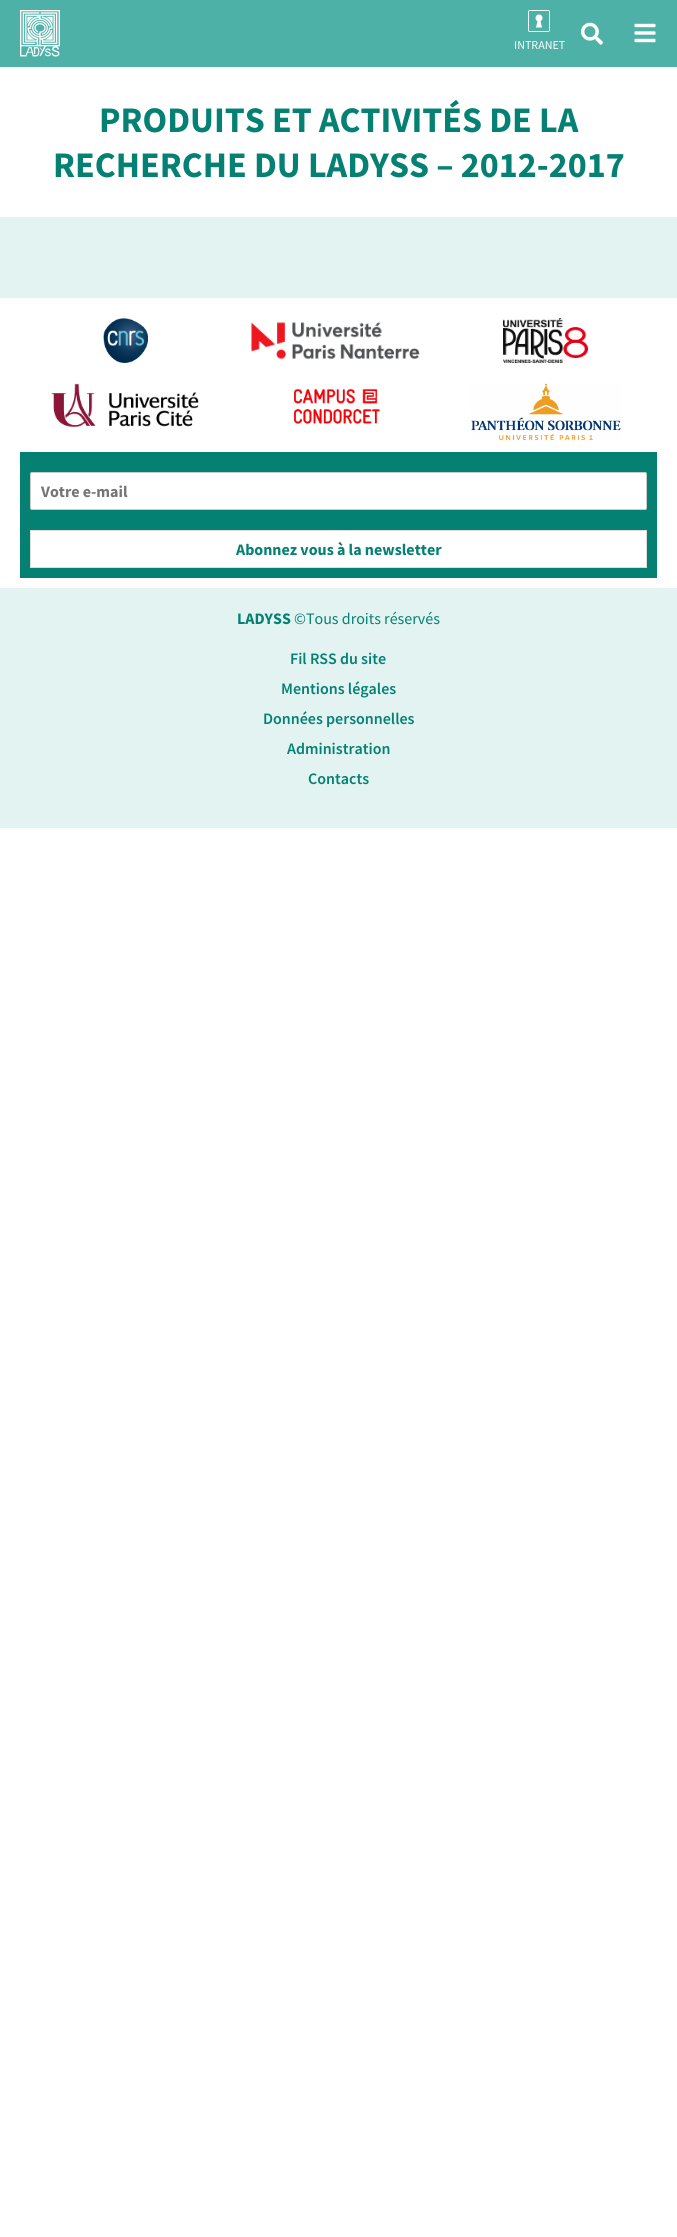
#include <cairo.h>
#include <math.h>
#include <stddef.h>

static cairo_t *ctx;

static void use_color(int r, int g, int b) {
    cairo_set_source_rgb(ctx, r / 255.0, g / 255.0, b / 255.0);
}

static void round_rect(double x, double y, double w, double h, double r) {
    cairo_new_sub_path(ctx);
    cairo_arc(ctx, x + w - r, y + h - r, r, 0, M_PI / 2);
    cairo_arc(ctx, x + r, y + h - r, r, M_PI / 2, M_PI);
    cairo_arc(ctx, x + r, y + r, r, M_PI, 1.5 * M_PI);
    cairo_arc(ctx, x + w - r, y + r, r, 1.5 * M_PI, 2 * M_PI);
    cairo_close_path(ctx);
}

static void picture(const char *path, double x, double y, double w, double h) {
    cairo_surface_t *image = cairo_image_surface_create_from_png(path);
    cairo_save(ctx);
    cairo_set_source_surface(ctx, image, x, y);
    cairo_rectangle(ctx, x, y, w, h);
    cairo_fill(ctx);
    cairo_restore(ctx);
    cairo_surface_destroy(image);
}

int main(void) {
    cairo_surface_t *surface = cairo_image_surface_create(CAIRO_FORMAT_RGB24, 677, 2237);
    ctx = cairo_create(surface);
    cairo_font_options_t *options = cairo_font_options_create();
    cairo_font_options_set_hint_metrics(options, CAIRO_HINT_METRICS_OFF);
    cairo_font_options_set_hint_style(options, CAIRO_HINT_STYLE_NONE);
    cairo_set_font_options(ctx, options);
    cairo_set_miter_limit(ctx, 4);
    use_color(255, 255, 255);
    cairo_paint(ctx);
    use_color(77, 177, 168);
    cairo_rectangle(ctx, 0, 0, 677, 67);
    cairo_fill(ctx);
    picture("img1.png", 20, 10, 40, 47);
    picture("img2.png", 581, 22, 22, 23);
    picture("img3.png", 634, 23, 22, 20);
    picture("img4.png", 528, 10, 22, 22);
    cairo_select_font_face(ctx, "Source Sans Pro", CAIRO_FONT_SLANT_NORMAL, CAIRO_FONT_WEIGHT_NORMAL);
    cairo_set_font_size(ctx, 12);
    use_color(255, 255, 255);
    cairo_move_to(ctx, 514, 49);
    cairo_show_text(ctx, "INTRANET");
    cairo_select_font_face(ctx, "Source Sans Pro", CAIRO_FONT_SLANT_NORMAL, CAIRO_FONT_WEIGHT_BOLD);
    cairo_set_font_size(ctx, 36);
    use_color(5, 129, 116);
    cairo_move_to(ctx, 99, 132);
    cairo_show_text(ctx, "PRODUITS ET ACTIVITÉS DE LA");
    cairo_move_to(ctx, 53, 177);
    cairo_show_text(ctx, "RECHERCHE DU LADYSS – 2012-2017");
    use_color(226, 243, 241);
    cairo_rectangle(ctx, 0, 217, 677, 81);
    cairo_fill(ctx);
    picture("img5.png", 103, 318, 45, 45);
    picture("img6.png", 251, 322, 169, 38);
    picture("img7.png", 503, 318, 85, 45);
    picture("img8.png", 51, 383, 148, 45);
    picture("img9.png", 294, 388, 86, 36);
    picture("img10.png", 471, 383, 150, 58);
    use_color(5, 129, 116);
    cairo_rectangle(ctx, 20, 452, 637, 126);
    cairo_fill(ctx);
    use_color(255, 255, 255);
    round_rect(30.5, 472.5, 616, 37, 1.5);
    cairo_fill_preserve(ctx);
    use_color(204, 204, 204);
    cairo_set_line_width(ctx, 1);
    cairo_stroke(ctx);
    cairo_set_font_size(ctx, 16);
    use_color(117, 117, 117);
    cairo_move_to(ctx, 41, 497);
    cairo_show_text(ctx, "Votre e-mail");
    use_color(255, 255, 255);
    cairo_rectangle(ctx, 30.5, 530.5, 616, 37);
    cairo_fill_preserve(ctx);
    use_color(221, 221, 221);
    cairo_stroke(ctx);
    use_color(5, 129, 116);
    cairo_move_to(ctx, 236, 555);
    cairo_show_text(ctx, "Abonnez vous à la newsletter");
    use_color(226, 243, 241);
    cairo_rectangle(ctx, 0, 588, 677, 240);
    cairo_fill(ctx);
    use_color(5, 129, 116);
    cairo_move_to(ctx, 237, 624);
    cairo_show_text(ctx, "LADYSS");
    cairo_select_font_face(ctx, "Source Sans Pro", CAIRO_FONT_SLANT_NORMAL, CAIRO_FONT_WEIGHT_NORMAL);
    cairo_move_to(ctx, 294, 624);
    cairo_show_text(ctx, "©Tous droits réservés");
    cairo_select_font_face(ctx, "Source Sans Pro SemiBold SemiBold", CAIRO_FONT_SLANT_NORMAL, CAIRO_FONT_WEIGHT_NORMAL);
    cairo_move_to(ctx, 290, 664);
    cairo_show_text(ctx, "Fil RSS du site");
    cairo_move_to(ctx, 281, 694);
    cairo_show_text(ctx, "Mentions légales");
    cairo_move_to(ctx, 263, 724);
    cairo_show_text(ctx, "Données personnelles");
    cairo_move_to(ctx, 287, 754);
    cairo_show_text(ctx, "Administration");
    cairo_move_to(ctx, 308, 784);
    cairo_show_text(ctx, "Contacts");
    cairo_surface_write_to_png(surface, "result.png");
    cairo_font_options_destroy(options);
    cairo_destroy(ctx);
    cairo_surface_destroy(surface);
    return 0;
}
